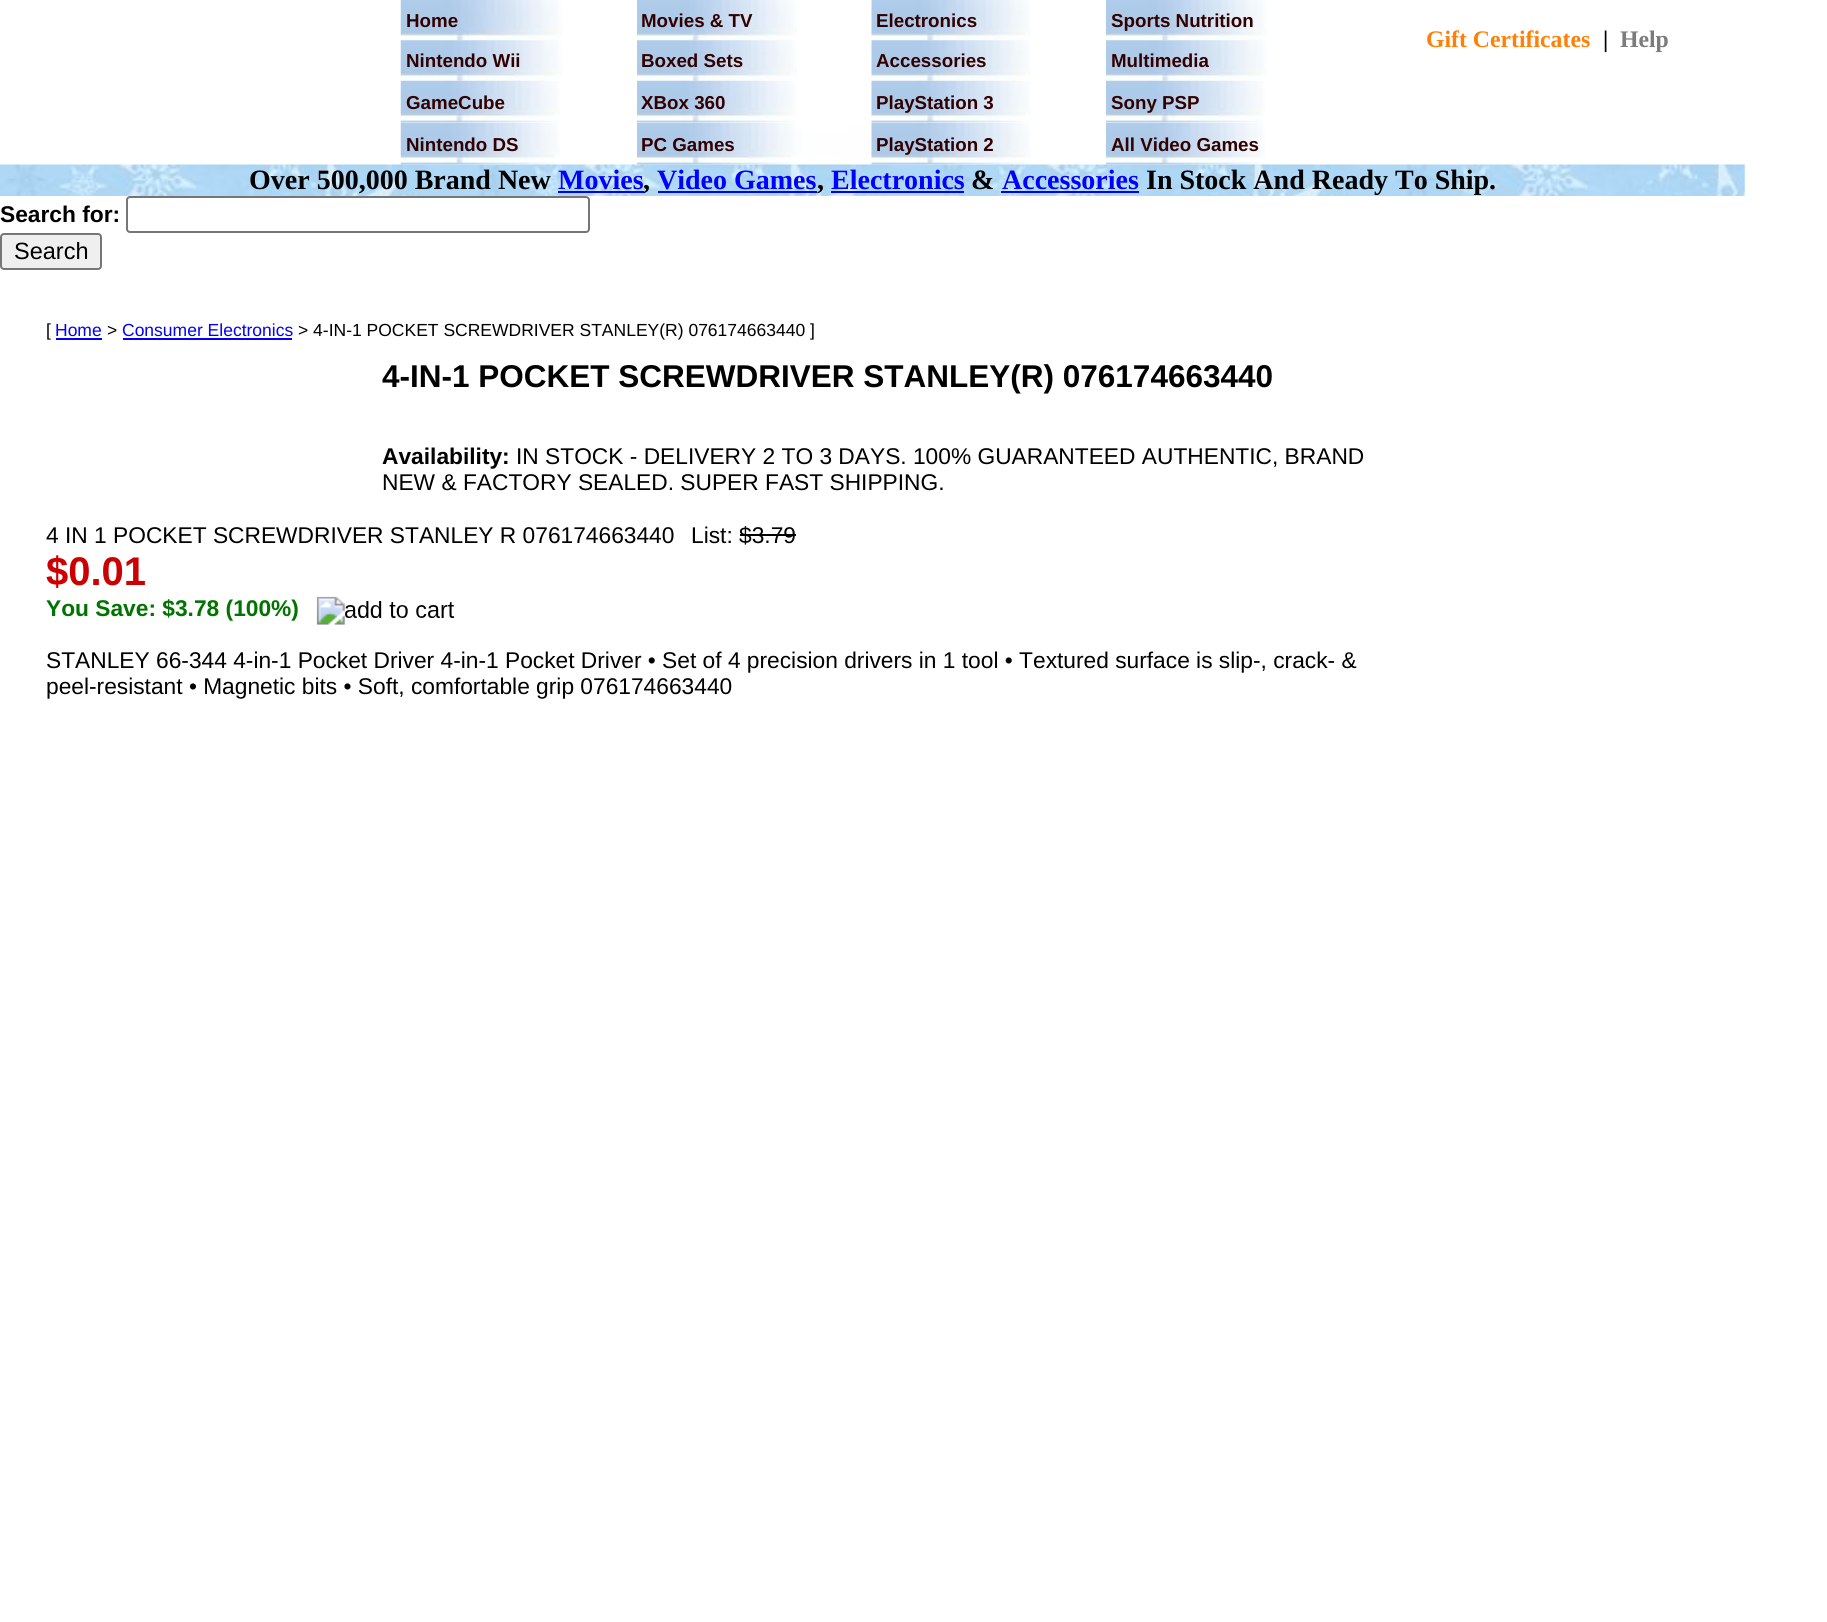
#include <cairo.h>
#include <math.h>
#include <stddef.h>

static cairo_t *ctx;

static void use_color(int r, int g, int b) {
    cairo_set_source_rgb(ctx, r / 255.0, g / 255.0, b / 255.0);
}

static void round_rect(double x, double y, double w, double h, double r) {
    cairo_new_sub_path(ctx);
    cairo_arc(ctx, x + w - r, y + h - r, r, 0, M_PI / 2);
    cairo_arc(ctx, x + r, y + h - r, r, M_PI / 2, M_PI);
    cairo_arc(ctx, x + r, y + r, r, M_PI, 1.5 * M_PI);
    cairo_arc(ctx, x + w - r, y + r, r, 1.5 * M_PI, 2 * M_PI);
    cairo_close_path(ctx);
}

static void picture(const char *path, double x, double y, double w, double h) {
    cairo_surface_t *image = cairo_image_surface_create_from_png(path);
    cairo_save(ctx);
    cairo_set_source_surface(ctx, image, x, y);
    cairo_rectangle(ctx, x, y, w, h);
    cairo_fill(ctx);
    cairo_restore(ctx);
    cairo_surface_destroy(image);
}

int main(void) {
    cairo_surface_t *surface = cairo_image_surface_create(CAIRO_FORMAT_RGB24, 1827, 1622);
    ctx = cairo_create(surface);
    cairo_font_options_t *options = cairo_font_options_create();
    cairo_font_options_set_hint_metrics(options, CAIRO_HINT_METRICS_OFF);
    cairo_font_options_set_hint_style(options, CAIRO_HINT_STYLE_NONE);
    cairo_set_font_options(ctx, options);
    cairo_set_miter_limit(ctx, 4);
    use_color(255, 255, 255);
    cairo_paint(ctx);
    picture("img1.png", 400, 0, 162, 41);
    cairo_select_font_face(ctx, "Liberation Sans", CAIRO_FONT_SLANT_NORMAL, CAIRO_FONT_WEIGHT_BOLD);
    cairo_set_font_size(ctx, 18.75);
    use_color(51, 0, 0);
    cairo_move_to(ctx, 406, 27);
    cairo_show_text(ctx, "Home");
    picture("img2.png", 637, 0, 160, 41);
    cairo_move_to(ctx, 641, 27);
    cairo_show_text(ctx, "Movies & TV");
    picture("img3.png", 871, 0, 160, 41);
    cairo_move_to(ctx, 876, 27);
    cairo_show_text(ctx, "Electronics");
    picture("img4.png", 1106, 0, 161, 41);
    cairo_move_to(ctx, 1111, 27);
    cairo_show_text(ctx, "Sports Nutrition");
    cairo_select_font_face(ctx, "Liberation Serif", CAIRO_FONT_SLANT_NORMAL, CAIRO_FONT_WEIGHT_BOLD);
    cairo_set_font_size(ctx, 23.75);
    use_color(255, 128, 6);
    cairo_move_to(ctx, 1426, 47);
    cairo_show_text(ctx, "Gift Certificates");
    use_color(0, 0, 0);
    cairo_move_to(ctx, 1603, 47);
    cairo_show_text(ctx, "|");
    use_color(124, 124, 124);
    cairo_move_to(ctx, 1620, 47);
    cairo_show_text(ctx, "Help");
    picture("img5.png", 400, 40, 162, 41);
    cairo_select_font_face(ctx, "Liberation Sans", CAIRO_FONT_SLANT_NORMAL, CAIRO_FONT_WEIGHT_BOLD);
    cairo_set_font_size(ctx, 18.75);
    use_color(51, 0, 0);
    cairo_move_to(ctx, 406, 67);
    cairo_show_text(ctx, "Nintendo Wii");
    picture("img6.png", 637, 40, 160, 41);
    cairo_move_to(ctx, 641, 67);
    cairo_show_text(ctx, "Boxed Sets");
    picture("img7.png", 871, 40, 160, 41);
    cairo_move_to(ctx, 876, 67);
    cairo_show_text(ctx, "Accessories");
    picture("img8.png", 1106, 40, 161, 41);
    cairo_move_to(ctx, 1111, 67);
    cairo_show_text(ctx, "Multimedia");
    picture("img9.png", 400, 80, 160, 43);
    cairo_move_to(ctx, 406, 109);
    cairo_show_text(ctx, "GameCube");
    picture("img10.png", 637, 80, 159, 43);
    cairo_move_to(ctx, 641, 109);
    cairo_show_text(ctx, "XBox 360");
    picture("img11.png", 871, 80, 160, 43);
    cairo_move_to(ctx, 876, 109);
    cairo_show_text(ctx, "PlayStation 3");
    picture("img12.png", 1106, 80, 159, 43);
    cairo_move_to(ctx, 1111, 109);
    cairo_show_text(ctx, "Sony PSP");
    picture("img13.png", 400, 122, 160, 43);
    cairo_move_to(ctx, 406, 151);
    cairo_show_text(ctx, "Nintendo DS");
    picture("img14.png", 637, 122, 235, 43);
    cairo_move_to(ctx, 641, 151);
    cairo_show_text(ctx, "PC Games");
    picture("img15.png", 871, 122, 160, 43);
    cairo_move_to(ctx, 876, 151);
    cairo_show_text(ctx, "PlayStation 2");
    picture("img16.png", 1106, 122, 159, 43);
    cairo_move_to(ctx, 1111, 151);
    cairo_show_text(ctx, "All Video Games");
    picture("img17.png", 0, 164, 1745, 32);
    cairo_select_font_face(ctx, "Liberation Serif", CAIRO_FONT_SLANT_NORMAL, CAIRO_FONT_WEIGHT_BOLD);
    cairo_set_font_size(ctx, 28);
    use_color(0, 0, 0);
    cairo_move_to(ctx, 249, 189);
    cairo_show_text(ctx, "Over 500,000 Brand New");
    use_color(0, 0, 255);
    cairo_move_to(ctx, 558, 189);
    cairo_show_text(ctx, "Movies");
    cairo_rectangle(ctx, 558, 191, 86, 2);
    cairo_fill(ctx);
    use_color(0, 0, 0);
    cairo_move_to(ctx, 643, 189);
    cairo_show_text(ctx, ",");
    use_color(0, 0, 255);
    cairo_move_to(ctx, 657, 189);
    cairo_show_text(ctx, "Video Games");
    use_color(0, 0, 0);
    cairo_move_to(ctx, 817, 189);
    cairo_show_text(ctx, ",");
    use_color(0, 0, 255);
    cairo_rectangle(ctx, 658, 191, 159, 2);
    cairo_fill(ctx);
    cairo_rectangle(ctx, 831, 191, 133, 2);
    cairo_fill(ctx);
    cairo_move_to(ctx, 831, 189);
    cairo_show_text(ctx, "Electronics");
    use_color(0, 0, 0);
    cairo_move_to(ctx, 971, 189);
    cairo_show_text(ctx, "&");
    use_color(0, 0, 255);
    cairo_move_to(ctx, 1002, 189);
    cairo_show_text(ctx, "Accessories");
    cairo_rectangle(ctx, 1001, 191, 138, 2);
    cairo_fill(ctx);
    use_color(0, 0, 0);
    cairo_move_to(ctx, 1146, 189);
    cairo_show_text(ctx, "In Stock And Ready To Ship.");
    cairo_select_font_face(ctx, "Liberation Sans", CAIRO_FONT_SLANT_NORMAL, CAIRO_FONT_WEIGHT_BOLD);
    cairo_set_font_size(ctx, 22.75);
    cairo_move_to(ctx, 0, 222);
    cairo_show_text(ctx, "Search for:");
    round_rect(127, 197, 462, 35, 3);
    use_color(118, 118, 118);
    cairo_stroke(ctx);
    use_color(239, 239, 239);
    round_rect(1, 234, 100, 35, 3);
    cairo_fill_preserve(ctx);
    use_color(118, 118, 118);
    cairo_stroke(ctx);
    cairo_select_font_face(ctx, "Liberation Sans", CAIRO_FONT_SLANT_NORMAL, CAIRO_FONT_WEIGHT_NORMAL);
    cairo_set_font_size(ctx, 23.5);
    use_color(0, 0, 0);
    cairo_move_to(ctx, 14, 259);
    cairo_show_text(ctx, "Search");
    cairo_set_font_size(ctx, 17.5);
    cairo_move_to(ctx, 46, 336);
    cairo_show_text(ctx, "[");
    use_color(0, 0, 255);
    cairo_move_to(ctx, 55, 336);
    cairo_show_text(ctx, "Home");
    cairo_rectangle(ctx, 56, 338, 46, 2);
    cairo_fill(ctx);
    use_color(0, 0, 0);
    cairo_move_to(ctx, 107, 336);
    cairo_show_text(ctx, ">");
    use_color(0, 0, 255);
    cairo_move_to(ctx, 122, 336);
    cairo_show_text(ctx, "Consumer Electronics");
    cairo_rectangle(ctx, 123, 338, 169, 2);
    cairo_fill(ctx);
    use_color(0, 0, 0);
    cairo_move_to(ctx, 298, 336);
    cairo_show_text(ctx, "> 4-IN-1 POCKET SCREWDRIVER STANLEY(R) 076174663440 ]");
    cairo_select_font_face(ctx, "Liberation Sans", CAIRO_FONT_SLANT_NORMAL, CAIRO_FONT_WEIGHT_BOLD);
    cairo_set_font_size(ctx, 31.5);
    cairo_move_to(ctx, 382, 387);
    cairo_show_text(ctx, "4-IN-1 POCKET SCREWDRIVER STANLEY(R) 076174663440");
    cairo_set_font_size(ctx, 22.75);
    cairo_move_to(ctx, 382, 464);
    cairo_show_text(ctx, "Availability:");
    cairo_select_font_face(ctx, "Liberation Sans", CAIRO_FONT_SLANT_NORMAL, CAIRO_FONT_WEIGHT_NORMAL);
    cairo_move_to(ctx, 516, 464);
    cairo_show_text(ctx, "IN STOCK - DELIVERY 2 TO 3 DAYS. 100% GUARANTEED AUTHENTIC, BRAND");
    cairo_move_to(ctx, 382, 490);
    cairo_show_text(ctx, "NEW & FACTORY SEALED. SUPER FAST SHIPPING.");
    cairo_move_to(ctx, 46, 543);
    cairo_show_text(ctx, "4 IN 1 POCKET SCREWDRIVER STANLEY R 076174663440");
    cairo_move_to(ctx, 691, 543);
    cairo_show_text(ctx, "List: $3.79");
    cairo_rectangle(ctx, 740, 534, 56, 2);
    cairo_fill(ctx);
    cairo_select_font_face(ctx, "Liberation Sans", CAIRO_FONT_SLANT_NORMAL, CAIRO_FONT_WEIGHT_BOLD);
    cairo_set_font_size(ctx, 40);
    use_color(204, 0, 0);
    cairo_move_to(ctx, 46, 585);
    cairo_show_text(ctx, "$0.01");
    cairo_set_font_size(ctx, 22.75);
    use_color(0, 115, 0);
    cairo_move_to(ctx, 46, 616);
    cairo_show_text(ctx, "You Save: $3.78 (100%)");
    picture("img18.png", 316, 596, 139, 29);
    cairo_select_font_face(ctx, "Liberation Sans", CAIRO_FONT_SLANT_NORMAL, CAIRO_FONT_WEIGHT_NORMAL);
    use_color(0, 0, 0);
    cairo_move_to(ctx, 46, 668);
    cairo_show_text(ctx, "STANLEY 66-344 4-in-1 Pocket Driver 4-in-1 Pocket Driver • Set of 4 precision drivers in 1 tool • Textured surface is slip-, crack- &");
    cairo_move_to(ctx, 46, 694);
    cairo_show_text(ctx, "peel-resistant • Magnetic bits • Soft, comfortable grip 076174663440");
    cairo_surface_write_to_png(surface, "result.png");
    cairo_font_options_destroy(options);
    cairo_destroy(ctx);
    cairo_surface_destroy(surface);
    return 0;
}
